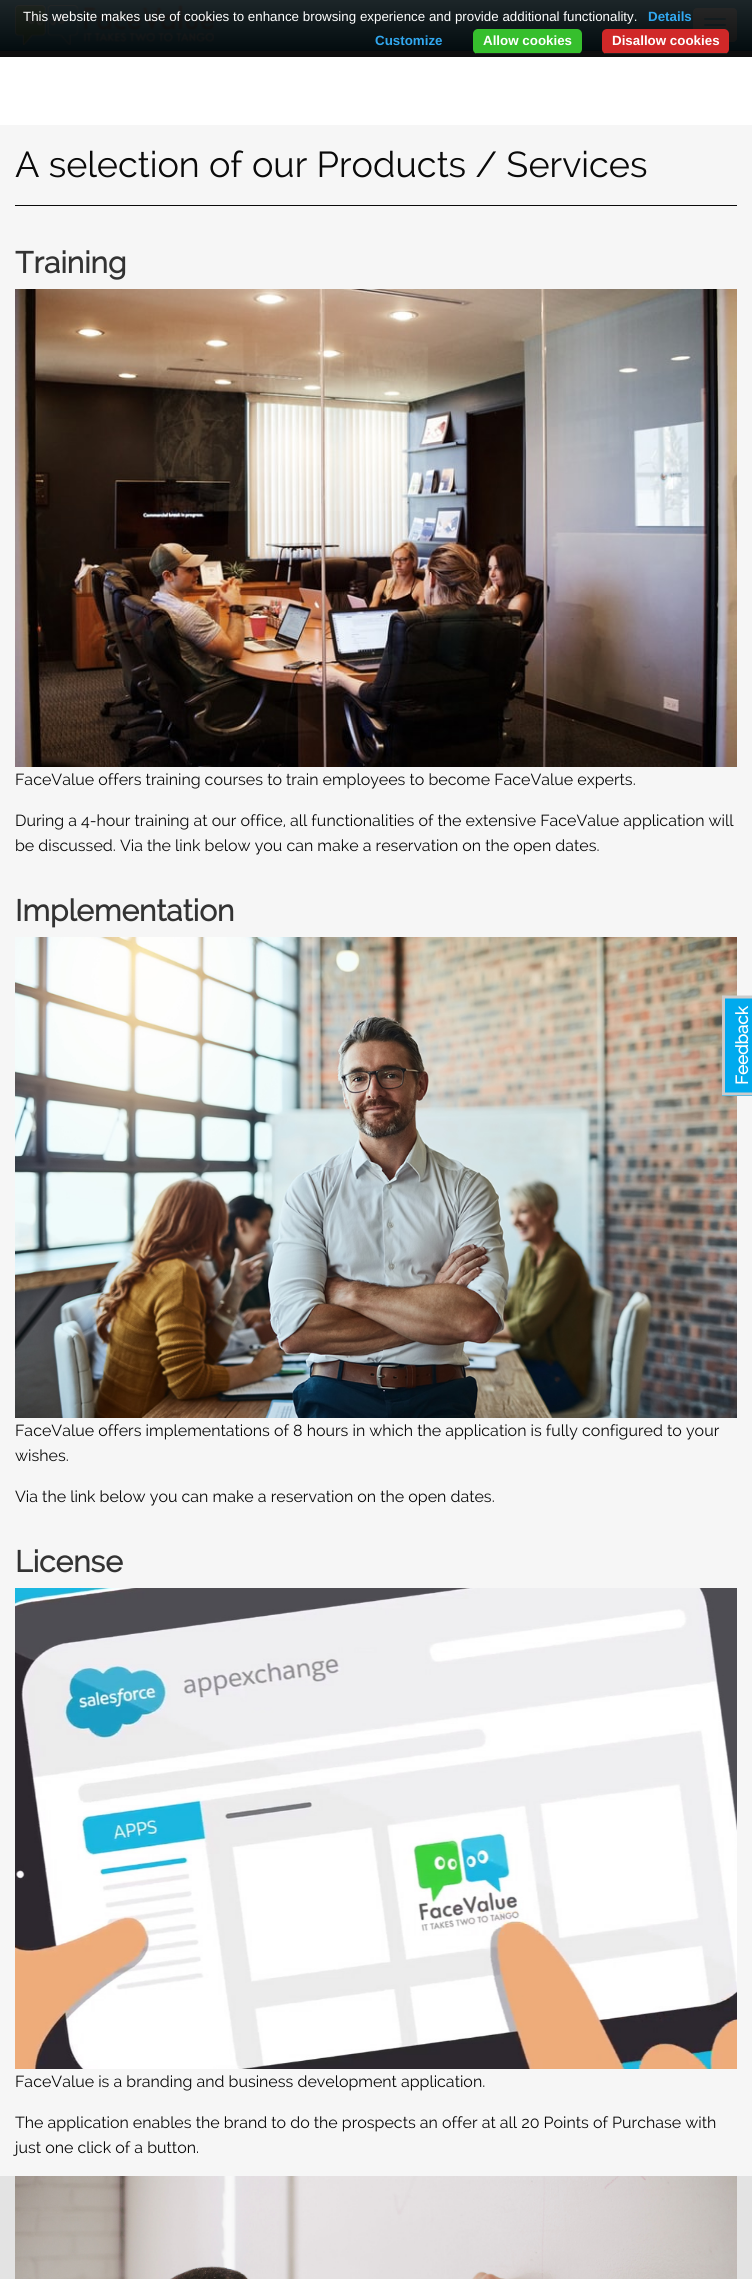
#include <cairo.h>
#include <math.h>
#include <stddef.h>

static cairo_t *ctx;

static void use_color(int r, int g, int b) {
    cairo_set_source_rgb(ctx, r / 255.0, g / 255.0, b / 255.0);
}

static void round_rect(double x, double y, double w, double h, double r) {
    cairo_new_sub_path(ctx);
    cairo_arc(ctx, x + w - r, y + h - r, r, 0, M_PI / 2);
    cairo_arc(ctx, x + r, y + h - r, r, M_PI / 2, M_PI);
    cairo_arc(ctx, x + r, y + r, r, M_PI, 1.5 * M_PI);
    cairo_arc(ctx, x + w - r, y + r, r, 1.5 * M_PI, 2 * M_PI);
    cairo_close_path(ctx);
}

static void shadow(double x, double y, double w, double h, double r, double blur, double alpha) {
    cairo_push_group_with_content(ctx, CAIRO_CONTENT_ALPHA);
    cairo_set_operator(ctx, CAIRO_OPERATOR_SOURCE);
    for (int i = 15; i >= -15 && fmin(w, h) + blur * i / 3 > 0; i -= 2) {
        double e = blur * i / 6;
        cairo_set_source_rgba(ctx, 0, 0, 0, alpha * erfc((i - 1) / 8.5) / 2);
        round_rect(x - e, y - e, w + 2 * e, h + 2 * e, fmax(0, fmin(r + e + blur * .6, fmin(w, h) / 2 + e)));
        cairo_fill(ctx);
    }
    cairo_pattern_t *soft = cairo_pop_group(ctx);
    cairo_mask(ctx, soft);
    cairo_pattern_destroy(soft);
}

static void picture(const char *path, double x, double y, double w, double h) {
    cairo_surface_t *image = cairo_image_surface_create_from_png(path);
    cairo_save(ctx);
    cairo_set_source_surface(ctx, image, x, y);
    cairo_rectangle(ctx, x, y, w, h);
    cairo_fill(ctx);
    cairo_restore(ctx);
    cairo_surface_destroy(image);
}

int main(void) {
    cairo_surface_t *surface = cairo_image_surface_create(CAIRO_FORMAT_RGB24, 752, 2279);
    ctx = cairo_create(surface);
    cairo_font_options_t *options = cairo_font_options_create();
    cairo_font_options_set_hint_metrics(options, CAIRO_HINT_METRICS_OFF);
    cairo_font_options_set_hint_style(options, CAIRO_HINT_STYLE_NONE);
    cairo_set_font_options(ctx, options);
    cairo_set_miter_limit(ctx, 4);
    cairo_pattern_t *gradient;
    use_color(255, 255, 255);
    cairo_paint(ctx);
    use_color(0, 170, 238);
    cairo_rectangle(ctx, 0, 0, 752, 51);
    cairo_fill(ctx);
    cairo_save(ctx);
    cairo_rectangle(ctx, 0, 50, 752, 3);
    cairo_clip(ctx);
    use_color(0, 0, 0);
    shadow(0, 1, 752, 50, 0, 1.5, 0.28);
    cairo_restore(ctx);
    picture("img1.png", 15, 5, 199, 40);
    use_color(255, 255, 255);
    round_rect(693, 8, 44, 34, 4);
    cairo_fill(ctx);
    use_color(0, 170, 238);
    round_rect(704, 18, 22, 2, 1);
    cairo_fill(ctx);
    round_rect(704, 24, 22, 2, 1);
    cairo_fill(ctx);
    gradient = cairo_pattern_create_linear(376, 0, 376, 57);
    cairo_pattern_add_color_stop_rgba(gradient, 0, 0.118, 0.118, 0.118, 0.95);
    cairo_pattern_add_color_stop_rgba(gradient, 1, 0, 0, 0, 0.95);
    cairo_set_source(ctx, gradient);
    cairo_pattern_destroy(gradient);
    cairo_rectangle(ctx, 0, 0, 752, 57);
    cairo_fill(ctx);
    cairo_select_font_face(ctx, "Liberation Sans", CAIRO_FONT_SLANT_NORMAL, CAIRO_FONT_WEIGHT_NORMAL);
    cairo_set_font_size(ctx, 13.35);
    use_color(255, 255, 255);
    cairo_move_to(ctx, 23, 21);
    cairo_show_text(ctx, "This website makes use of cookies to enhance browsing experience and provide additional functionality.");
    cairo_select_font_face(ctx, "Liberation Sans", CAIRO_FONT_SLANT_NORMAL, CAIRO_FONT_WEIGHT_BOLD);
    use_color(49, 168, 240);
    cairo_move_to(ctx, 648, 21);
    cairo_show_text(ctx, "Details");
    cairo_move_to(ctx, 375, 45);
    cairo_show_text(ctx, "Customize");
    use_color(54, 191, 45);
    round_rect(473, 29, 109, 25, 5);
    cairo_fill(ctx);
    use_color(34, 34, 34);
    cairo_rectangle(ctx, 476, 53, 104, 1);
    cairo_fill(ctx);
    use_color(255, 255, 255);
    cairo_move_to(ctx, 483, 45);
    cairo_show_text(ctx, "Allow cookies");
    use_color(208, 40, 40);
    round_rect(602, 29, 127, 25, 5);
    cairo_fill(ctx);
    use_color(34, 34, 34);
    cairo_rectangle(ctx, 605, 53, 122, 1);
    cairo_fill(ctx);
    use_color(255, 255, 255);
    cairo_move_to(ctx, 612, 45);
    cairo_show_text(ctx, "Disallow cookies");
    use_color(246, 246, 246);
    cairo_rectangle(ctx, 0, 125, 752, 2051);
    cairo_fill(ctx);
    cairo_select_font_face(ctx, "Raleway", CAIRO_FONT_SLANT_NORMAL, CAIRO_FONT_WEIGHT_NORMAL);
    cairo_set_font_size(ctx, 36);
    use_color(10, 10, 10);
    cairo_move_to(ctx, 15, 177);
    cairo_show_text(ctx, "A selection of our Products / Services");
    cairo_rectangle(ctx, 15, 205, 722, 1);
    cairo_fill(ctx);
    cairo_select_font_face(ctx, "Raleway", CAIRO_FONT_SLANT_NORMAL, CAIRO_FONT_WEIGHT_BOLD);
    cairo_set_font_size(ctx, 30);
    use_color(51, 51, 51);
    cairo_move_to(ctx, 15, 273);
    cairo_show_text(ctx, "Training");
    picture("img2.png", 15, 289, 722, 478);
    cairo_select_font_face(ctx, "Raleway", CAIRO_FONT_SLANT_NORMAL, CAIRO_FONT_WEIGHT_NORMAL);
    cairo_set_font_size(ctx, 16);
    use_color(10, 10, 10);
    cairo_move_to(ctx, 15, 785);
    cairo_show_text(ctx, "FaceValue offers training courses to train employees to become FaceValue experts.");
    cairo_move_to(ctx, 15, 826);
    cairo_show_text(ctx, "During a 4-hour training at our office, all functionalities of the extensive FaceValue application will");
    cairo_move_to(ctx, 15, 851);
    cairo_show_text(ctx, "be discussed. Via the link below you can make a reservation on the open dates.");
    cairo_select_font_face(ctx, "Raleway", CAIRO_FONT_SLANT_NORMAL, CAIRO_FONT_WEIGHT_BOLD);
    cairo_set_font_size(ctx, 30);
    use_color(51, 51, 51);
    cairo_move_to(ctx, 15, 921);
    cairo_show_text(ctx, "Implementation");
    picture("img3.png", 15, 937, 722, 481);
    cairo_select_font_face(ctx, "Raleway", CAIRO_FONT_SLANT_NORMAL, CAIRO_FONT_WEIGHT_NORMAL);
    cairo_set_font_size(ctx, 16);
    use_color(10, 10, 10);
    cairo_move_to(ctx, 15, 1436);
    cairo_show_text(ctx, "FaceValue offers implementations of 8 hours in which the application is fully configured to your");
    cairo_move_to(ctx, 15, 1461);
    cairo_show_text(ctx, "wishes.");
    cairo_move_to(ctx, 15, 1502);
    cairo_show_text(ctx, "Via the link below you can make a reservation on the open dates.");
    cairo_select_font_face(ctx, "Raleway", CAIRO_FONT_SLANT_NORMAL, CAIRO_FONT_WEIGHT_BOLD);
    cairo_set_font_size(ctx, 30);
    use_color(51, 51, 51);
    cairo_move_to(ctx, 15, 1572);
    cairo_show_text(ctx, "License");
    picture("img4.png", 15, 1588, 722, 481);
    cairo_select_font_face(ctx, "Raleway", CAIRO_FONT_SLANT_NORMAL, CAIRO_FONT_WEIGHT_NORMAL);
    cairo_set_font_size(ctx, 16);
    use_color(10, 10, 10);
    cairo_move_to(ctx, 15, 2087);
    cairo_show_text(ctx, "FaceValue is a branding and business development application.");
    cairo_move_to(ctx, 15, 2128);
    cairo_show_text(ctx, "The application enables the brand to do the prospects an offer at all 20 Points of Purchase with");
    cairo_move_to(ctx, 15, 2153);
    cairo_show_text(ctx, "just one click of a button.");
    use_color(0, 170, 238);
    cairo_rectangle(ctx, 722, 998, 30, 98);
    cairo_fill(ctx);
    cairo_new_path(ctx);
    cairo_move_to(ctx, 723.5, 1094);
    cairo_line_to(ctx, 723.5, 997);
    cairo_line_to(ctx, 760.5, 997);
    cairo_line_to(ctx, 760.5, 1094);
    cairo_close_path(ctx);
    use_color(204, 204, 204);
    cairo_set_line_width(ctx, 3);
    cairo_stroke(ctx);
    cairo_select_font_face(ctx, "Raleway", CAIRO_FONT_SLANT_NORMAL, CAIRO_FONT_WEIGHT_BOLD);
    cairo_set_font_size(ctx, 17);
    use_color(255, 255, 255);
    cairo_save(ctx);
    cairo_translate(ctx, 748, 1085);
    cairo_rotate(ctx, -90 * M_PI / 180);
    cairo_move_to(ctx, 0, 0);
    cairo_show_text(ctx, "Feedback");
    cairo_restore(ctx);
    use_color(227, 227, 227);
    cairo_rectangle(ctx, 0, 2176, 752, 103);
    cairo_fill(ctx);
    picture("img5.png", 15, 2176, 722, 103);
    cairo_surface_write_to_png(surface, "result.png");
    cairo_font_options_destroy(options);
    cairo_destroy(ctx);
    cairo_surface_destroy(surface);
    return 0;
}
